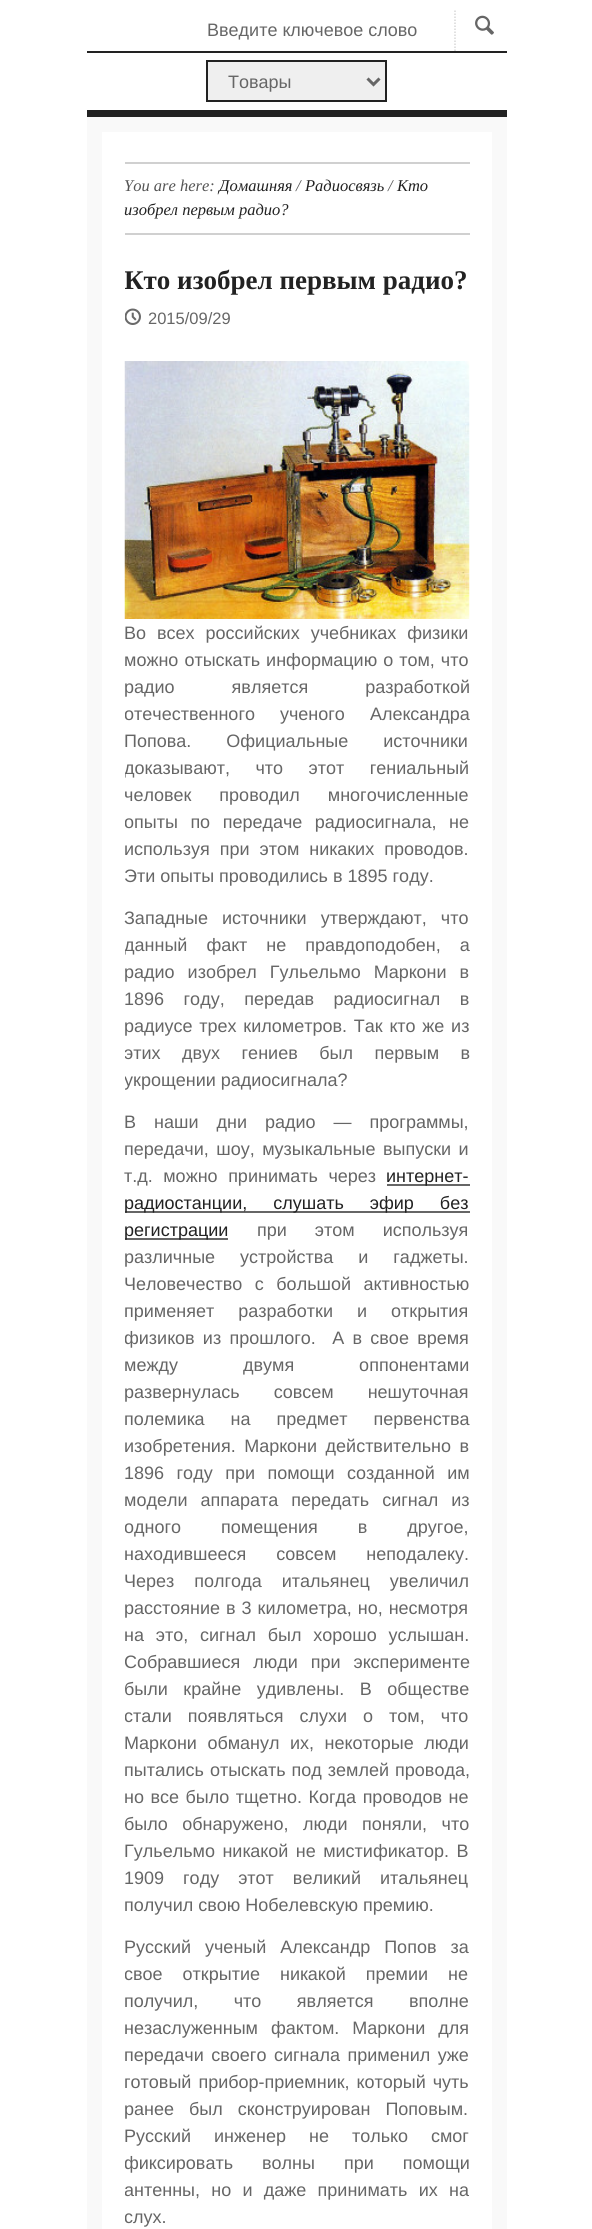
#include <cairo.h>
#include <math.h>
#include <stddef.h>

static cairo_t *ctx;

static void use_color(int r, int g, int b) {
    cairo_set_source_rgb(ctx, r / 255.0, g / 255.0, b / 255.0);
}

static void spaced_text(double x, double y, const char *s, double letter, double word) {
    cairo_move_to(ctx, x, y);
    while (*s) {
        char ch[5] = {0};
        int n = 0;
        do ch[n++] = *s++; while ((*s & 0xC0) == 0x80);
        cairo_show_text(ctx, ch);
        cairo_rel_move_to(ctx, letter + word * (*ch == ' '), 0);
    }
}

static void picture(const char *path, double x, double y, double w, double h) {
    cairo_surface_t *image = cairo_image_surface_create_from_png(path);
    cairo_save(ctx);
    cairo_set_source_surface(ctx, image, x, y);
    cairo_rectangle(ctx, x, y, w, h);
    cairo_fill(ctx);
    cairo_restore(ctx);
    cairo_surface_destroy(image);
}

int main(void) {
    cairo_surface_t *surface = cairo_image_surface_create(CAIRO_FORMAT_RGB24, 592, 2229);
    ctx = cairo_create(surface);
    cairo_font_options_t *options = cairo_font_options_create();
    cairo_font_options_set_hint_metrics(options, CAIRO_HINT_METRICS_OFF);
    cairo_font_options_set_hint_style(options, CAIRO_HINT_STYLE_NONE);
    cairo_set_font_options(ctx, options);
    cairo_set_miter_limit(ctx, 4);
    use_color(255, 255, 255);
    cairo_paint(ctx);
    use_color(34, 34, 34);
    cairo_rectangle(ctx, 87, 110, 420, 7);
    cairo_fill(ctx);
    cairo_new_path(ctx);
    cairo_move_to(ctx, 455, 10.5);
    cairo_line_to(ctx, 455, 51);
    use_color(215, 215, 215);
    cairo_set_line_width(ctx, 1.5);
    cairo_set_dash(ctx, (double[]){1.5, 1.5}, 2, 0);
    cairo_stroke(ctx);
    cairo_select_font_face(ctx, "Liberation Sans", CAIRO_FONT_SLANT_NORMAL, CAIRO_FONT_WEIGHT_NORMAL);
    cairo_set_font_size(ctx, 18);
    use_color(102, 102, 102);
    cairo_move_to(ctx, 207, 36);
    cairo_show_text(ctx, "Введите ключевое слово");
    picture("img1.png", 475, 15, 19, 20);
    use_color(34, 34, 34);
    cairo_rectangle(ctx, 87, 51, 420, 2);
    cairo_fill(ctx);
    use_color(239, 239, 239);
    cairo_rectangle(ctx, 207, 61, 179, 40);
    cairo_fill_preserve(ctx);
    use_color(34, 34, 34);
    cairo_set_line_width(ctx, 2);
    cairo_set_dash(ctx, NULL, 0, 0);
    cairo_stroke(ctx);
    cairo_new_path(ctx);
    cairo_move_to(ctx, 367.5, 78.5);
    cairo_line_to(ctx, 373.5, 84.5);
    cairo_line_to(ctx, 379.5, 78.5);
    use_color(102, 102, 102);
    cairo_set_line_width(ctx, 3);
    cairo_stroke(ctx);
    cairo_move_to(ctx, 228, 88);
    cairo_show_text(ctx, "Товары");
    cairo_rectangle(ctx, 94.5, 124.5, 405, 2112);
    use_color(249, 249, 249);
    cairo_set_line_width(ctx, 15);
    cairo_stroke(ctx);
    use_color(208, 208, 208);
    cairo_rectangle(ctx, 125, 162, 345, 2);
    cairo_fill(ctx);
    cairo_rectangle(ctx, 125, 233, 345, 2);
    cairo_fill(ctx);
    cairo_select_font_face(ctx, "Liberation Serif", CAIRO_FONT_SLANT_ITALIC, CAIRO_FONT_WEIGHT_NORMAL);
    cairo_set_font_size(ctx, 16.5);
    use_color(85, 85, 85);
    cairo_move_to(ctx, 124, 191);
    cairo_show_text(ctx, "You are here:");
    use_color(34, 34, 34);
    cairo_move_to(ctx, 219, 191);
    cairo_show_text(ctx, "Домашняя");
    use_color(85, 85, 85);
    cairo_move_to(ctx, 296, 191);
    cairo_show_text(ctx, "/");
    use_color(34, 34, 34);
    cairo_move_to(ctx, 305, 191);
    cairo_show_text(ctx, "Радиосвязь");
    use_color(85, 85, 85);
    cairo_move_to(ctx, 388, 191);
    cairo_show_text(ctx, "/");
    use_color(34, 34, 34);
    cairo_move_to(ctx, 397, 191);
    cairo_show_text(ctx, "Кто");
    cairo_move_to(ctx, 124, 215);
    cairo_show_text(ctx, "изобрел первым радио?");
    cairo_save(ctx);
    cairo_rectangle(ctx, 125, 264, 345, 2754);
    cairo_clip(ctx);
    cairo_select_font_face(ctx, "Liberation Serif", CAIRO_FONT_SLANT_NORMAL, CAIRO_FONT_WEIGHT_BOLD);
    cairo_set_font_size(ctx, 27);
    cairo_move_to(ctx, 124, 289);
    cairo_show_text(ctx, "Кто изобрел первым радио?");
    cairo_restore(ctx);
    picture("img2.png", 125, 308, 16, 17);
    cairo_select_font_face(ctx, "Liberation Sans", CAIRO_FONT_SLANT_NORMAL, CAIRO_FONT_WEIGHT_NORMAL);
    use_color(102, 102, 102);
    cairo_move_to(ctx, 148, 324);
    cairo_show_text(ctx, "2015/09/29");
    picture("img3.png", 124, 361, 346, 258);
    cairo_set_font_size(ctx, 18);
    spaced_text(124, 639, "Во всех российских учебниках физики", 0, 6);
    spaced_text(124, 666, "можно отыскать информацию о том, что", 0, 1);
    spaced_text(124, 693, "радио является разработкой", 0, 52);
    cairo_save(ctx);
    cairo_rectangle(ctx, 125, 264, 345, 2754);
    cairo_clip(ctx);
    spaced_text(124, 720, "отечественного ученого Александра", 0, 20);
    cairo_restore(ctx);
    spaced_text(124, 747, "Попова. Официальные источники", 0, 30);
    cairo_save(ctx);
    cairo_rectangle(ctx, 125, 264, 345, 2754);
    cairo_clip(ctx);
    spaced_text(124, 774, "доказывают, что этот гениальный", 0, 20.5);
    spaced_text(124, 801, "человек проводил многочисленные", 0, 23);
    spaced_text(124, 828, "опыты по передаче радиосигнала, не", 0, 7.5);
    cairo_restore(ctx);
    spaced_text(124, 855, "используя при этом никаких проводов.", 0, 5);
    cairo_move_to(ctx, 124, 882);
    cairo_show_text(ctx, "Эти опыты проводились в 1895 году.");
    spaced_text(124, 924, "Западные источники утверждают, что", 0, 9);
    cairo_save(ctx);
    cairo_rectangle(ctx, 125, 264, 345, 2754);
    cairo_clip(ctx);
    spaced_text(124, 951, "данный факт не правдоподобен, а", 0, 14);
    cairo_restore(ctx);
    spaced_text(124, 978, "радио изобрел Гульельмо Маркони в", 0, 8);
    spaced_text(124, 1005, "1896 году, передав радиосигнал в", 0, 14.5);
    spaced_text(124, 1032, "радиусе трех километров. Так кто же из", 0, 1.75);
    cairo_save(ctx);
    cairo_rectangle(ctx, 125, 264, 345, 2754);
    cairo_clip(ctx);
    spaced_text(124, 1059, "этих двух гениев был первым в", 0, 16.5);
    cairo_move_to(ctx, 124, 1086);
    cairo_show_text(ctx, "укрощении радиосигнала?");
    cairo_restore(ctx);
    spaced_text(124, 1128, "В наши дни радио — программы,", 0, 13);
    spaced_text(124, 1155, "передачи, шоу, музыкальные выпуски и", 0, 2.5);
    spaced_text(124, 1182, "т.д. можно принимать через", 0, 5.5);
    cairo_rectangle(ctx, 387, 1184, 83, 2);
    cairo_fill(ctx);
    use_color(34, 34, 34);
    cairo_move_to(ctx, 386, 1182);
    cairo_show_text(ctx, "интернет-");
    use_color(102, 102, 102);
    cairo_rectangle(ctx, 125, 1211, 345, 2);
    cairo_fill(ctx);
    use_color(34, 34, 34);
    spaced_text(124, 1209, "радиостанции, слушать эфир без", 0, 21);
    use_color(102, 102, 102);
    cairo_rectangle(ctx, 125, 1238, 103, 2);
    cairo_fill(ctx);
    use_color(34, 34, 34);
    cairo_move_to(ctx, 124, 1236);
    cairo_show_text(ctx, "регистрации");
    use_color(102, 102, 102);
    spaced_text(257, 1236, "при этом используя", 0, 23);
    spaced_text(124, 1263, "различные устройства и гаджеты.", 0, 20);
    spaced_text(124, 1290, "Человечество с большой активностью", 0, 7.5);
    spaced_text(124, 1317, "применяет разработки и открытия", 0, 19);
    cairo_save(ctx);
    cairo_rectangle(ctx, 125, 264, 345, 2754);
    cairo_clip(ctx);
    spaced_text(124, 1344, "физиков из прошлого.  А в свое время", 0, 3.25);
    cairo_restore(ctx);
    spaced_text(124, 1371, "между двумя оппонентами", 0, 60);
    spaced_text(124, 1398, "развернулась совсем нешуточная", 0, 29);
    spaced_text(124, 1425, "полемика на предмет первенства", 0, 21);
    spaced_text(124, 1452, "изобретения. Маркони действительно в", 0, 3.5);
    spaced_text(124, 1479, "1896 году при помощи созданной им", 0, 7.5);
    spaced_text(124, 1506, "модели аппарата передать сигнал из", 0, 8);
    cairo_save(ctx);
    cairo_rectangle(ctx, 125, 264, 345, 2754);
    cairo_clip(ctx);
    spaced_text(124, 1533, "одного помещения в другое,", 0, 35);
    cairo_restore(ctx);
    spaced_text(124, 1560, "находившееся совсем неподалеку.", 0, 25);
    spaced_text(124, 1587, "Через полгода итальянец увеличил", 0, 15);
    spaced_text(124, 1614, "расстояние в 3 километра, но, несмотря", 0, 1);
    spaced_text(124, 1641, "на это, сигнал был хорошо услышан.", 0, 6.75);
    cairo_save(ctx);
    cairo_rectangle(ctx, 125, 264, 345, 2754);
    cairo_clip(ctx);
    spaced_text(124, 1668, "Собравшиеся люди при эксперименте", 0, 8);
    spaced_text(124, 1695, "были крайне удивлены. В обществе", 0, 10.5);
    spaced_text(124, 1722, "стали появляться слухи о том, что", 0, 11);
    cairo_restore(ctx);
    spaced_text(124, 1749, "Маркони обманул их, некоторые люди", 0, 5.5);
    spaced_text(124, 1776, "пытались отыскать под землей провода,", 0, 1);
    spaced_text(124, 1803, "но все было тщетно. Когда проводов не", 0, 1.5);
    cairo_save(ctx);
    cairo_rectangle(ctx, 125, 264, 345, 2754);
    cairo_clip(ctx);
    spaced_text(124, 1830, "было обнаружено, люди поняли, что", 0, 9.5);
    cairo_restore(ctx);
    spaced_text(124, 1857, "Гульельмо никакой не мистификатор. В", 0, 2.5);
    spaced_text(124, 1884, "1909 году этот великий итальянец", 0, 14);
    cairo_move_to(ctx, 124, 1911);
    cairo_show_text(ctx, "получил свою Нобелевскую премию.");
    spaced_text(124, 1953, "Русский ученый Александр Попов за", 0, 9);
    cairo_save(ctx);
    cairo_rectangle(ctx, 125, 264, 345, 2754);
    cairo_clip(ctx);
    spaced_text(124, 1980, "свое открытие никакой премии не", 0, 15);
    cairo_restore(ctx);
    spaced_text(124, 2007, "получил, что является вполне", 0, 30.5);
    spaced_text(124, 2034, "незаслуженным фактом. Маркони для", 0, 8);
    spaced_text(124, 2061, "передачи своего сигнала применил уже", 0, 2.5);
    spaced_text(124, 2088, "готовый прибор-приемник, который чуть", 0, 2);
    spaced_text(124, 2115, "ранее был сконструирован Поповым.", 0, 10);
    spaced_text(124, 2142, "Русский инженер не только смог", 0, 18);
    cairo_save(ctx);
    cairo_rectangle(ctx, 125, 264, 345, 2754);
    cairo_clip(ctx);
    spaced_text(124, 2169, "фиксировать волны при помощи", 0, 24);
    spaced_text(124, 2196, "антенны, но и даже принимать их на", 0, 6.25);
    cairo_move_to(ctx, 124, 2223);
    cairo_show_text(ctx, "слух.");
    cairo_restore(ctx);
    cairo_surface_write_to_png(surface, "result.png");
    cairo_font_options_destroy(options);
    cairo_destroy(ctx);
    cairo_surface_destroy(surface);
    return 0;
}
